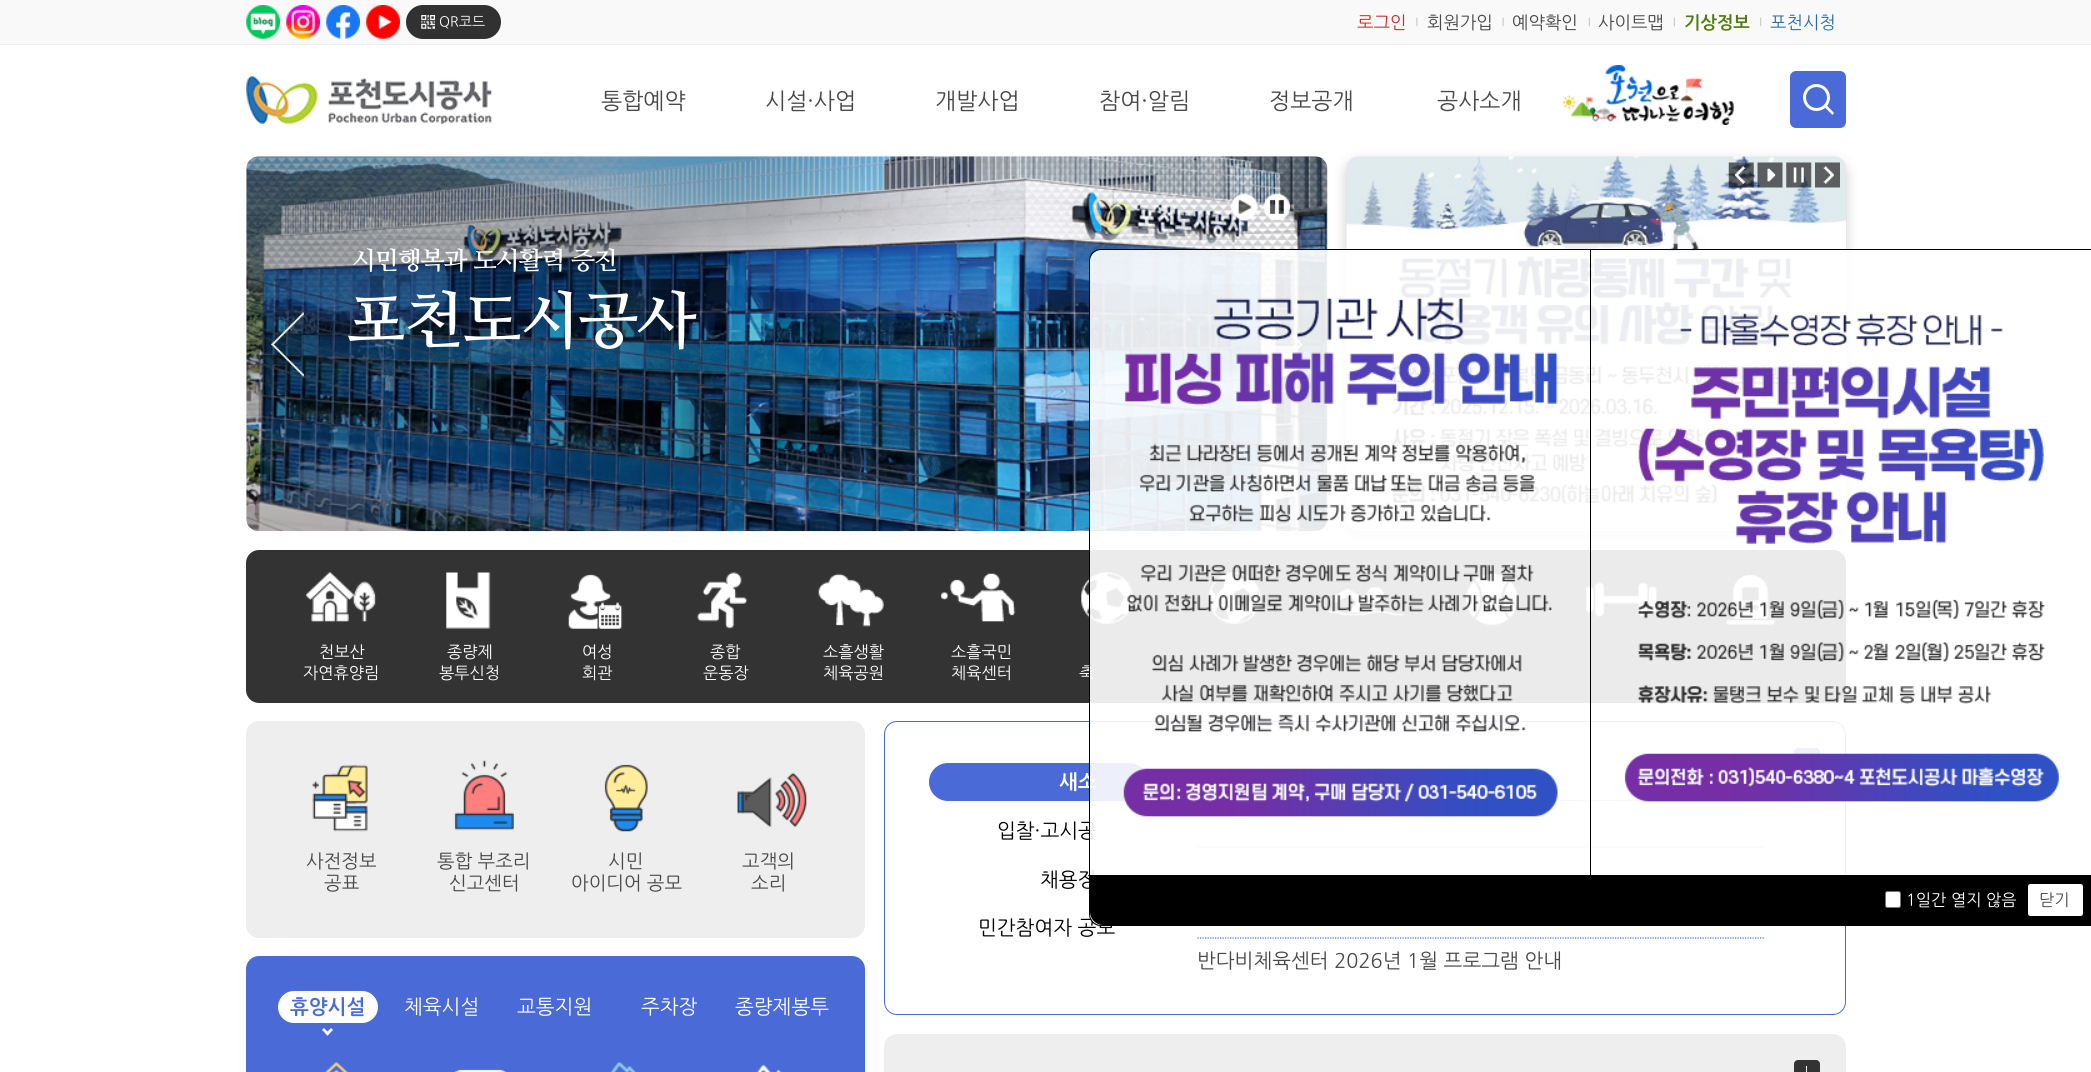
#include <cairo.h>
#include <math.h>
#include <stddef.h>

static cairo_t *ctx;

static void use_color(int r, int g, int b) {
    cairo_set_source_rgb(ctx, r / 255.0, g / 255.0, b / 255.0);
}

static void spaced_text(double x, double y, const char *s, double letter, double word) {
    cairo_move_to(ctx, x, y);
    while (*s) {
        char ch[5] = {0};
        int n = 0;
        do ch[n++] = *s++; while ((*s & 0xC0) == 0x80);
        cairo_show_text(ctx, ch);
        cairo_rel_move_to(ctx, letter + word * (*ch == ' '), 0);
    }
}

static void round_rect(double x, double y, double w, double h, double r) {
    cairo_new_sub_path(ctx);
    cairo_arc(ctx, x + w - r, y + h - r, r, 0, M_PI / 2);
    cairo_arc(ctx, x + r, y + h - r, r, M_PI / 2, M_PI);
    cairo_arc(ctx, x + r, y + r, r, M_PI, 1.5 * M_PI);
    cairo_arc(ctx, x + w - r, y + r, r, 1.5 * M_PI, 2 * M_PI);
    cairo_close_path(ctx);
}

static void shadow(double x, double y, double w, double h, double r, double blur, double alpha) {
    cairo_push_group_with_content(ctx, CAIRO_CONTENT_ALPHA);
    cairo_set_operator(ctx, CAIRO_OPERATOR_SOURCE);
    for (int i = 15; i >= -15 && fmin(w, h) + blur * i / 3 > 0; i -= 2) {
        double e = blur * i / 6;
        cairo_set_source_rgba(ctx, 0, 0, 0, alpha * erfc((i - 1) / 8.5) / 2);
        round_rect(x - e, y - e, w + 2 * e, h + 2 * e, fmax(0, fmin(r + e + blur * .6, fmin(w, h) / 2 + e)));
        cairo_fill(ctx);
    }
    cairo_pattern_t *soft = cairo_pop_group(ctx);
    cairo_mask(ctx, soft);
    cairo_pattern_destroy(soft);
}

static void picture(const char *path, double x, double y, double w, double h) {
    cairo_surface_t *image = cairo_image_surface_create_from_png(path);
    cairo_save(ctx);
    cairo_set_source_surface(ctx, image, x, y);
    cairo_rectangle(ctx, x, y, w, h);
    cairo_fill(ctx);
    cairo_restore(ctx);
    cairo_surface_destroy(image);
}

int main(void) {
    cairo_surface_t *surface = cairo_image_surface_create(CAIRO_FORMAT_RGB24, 2091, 1072);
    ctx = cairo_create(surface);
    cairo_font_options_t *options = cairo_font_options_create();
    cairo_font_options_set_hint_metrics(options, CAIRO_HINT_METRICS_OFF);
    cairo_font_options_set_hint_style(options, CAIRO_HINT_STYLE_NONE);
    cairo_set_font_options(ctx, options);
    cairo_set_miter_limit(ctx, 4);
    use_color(255, 255, 255);
    cairo_paint(ctx);
    use_color(249, 249, 249);
    cairo_rectangle(ctx, 0, 0, 2091, 44);
    cairo_fill(ctx);
    use_color(238, 238, 238);
    cairo_rectangle(ctx, 0, 44, 2091, 1);
    cairo_fill(ctx);
    picture("img1.png", 246, 5, 34, 34);
    picture("img2.png", 286, 5, 34, 34);
    picture("img3.png", 326, 5, 34, 34);
    picture("img4.png", 366, 5, 34, 34);
    use_color(49, 49, 49);
    round_rect(406, 5, 95, 34, 17);
    cairo_fill(ctx);
    picture("img5.png", 421, 15, 14, 14);
    cairo_select_font_face(ctx, "NanumGothic", CAIRO_FONT_SLANT_NORMAL, CAIRO_FONT_WEIGHT_NORMAL);
    cairo_set_font_size(ctx, 14);
    use_color(255, 255, 255);
    cairo_move_to(ctx, 439, 26);
    cairo_show_text(ctx, "QR코드");
    cairo_set_font_size(ctx, 17.5);
    use_color(203, 45, 45);
    cairo_move_to(ctx, 1357, 28);
    cairo_show_text(ctx, "로그인");
    picture("img6.png", 1416, 17, 2, 10);
    use_color(72, 72, 72);
    cairo_move_to(ctx, 1427, 28);
    cairo_show_text(ctx, "회원가입");
    picture("img7.png", 1502, 17, 2, 10);
    cairo_move_to(ctx, 1512, 28);
    cairo_show_text(ctx, "예약확인");
    picture("img8.png", 1588, 17, 2, 10);
    cairo_move_to(ctx, 1598, 28);
    cairo_show_text(ctx, "사이트맵");
    picture("img8.png", 1673, 17, 2, 10);
    cairo_select_font_face(ctx, "NanumGothic", CAIRO_FONT_SLANT_NORMAL, CAIRO_FONT_WEIGHT_BOLD);
    use_color(81, 122, 16);
    cairo_move_to(ctx, 1684, 28);
    cairo_show_text(ctx, "기상정보");
    picture("img9.png", 1760, 17, 2, 10);
    cairo_select_font_face(ctx, "NanumGothic", CAIRO_FONT_SLANT_NORMAL, CAIRO_FONT_WEIGHT_NORMAL);
    use_color(44, 108, 167);
    cairo_move_to(ctx, 1770, 28);
    cairo_show_text(ctx, "포천시청");
    picture("img10.png", 246, 76, 246, 48);
    cairo_set_font_size(ctx, 22.5);
    use_color(72, 72, 72);
    cairo_move_to(ctx, 601, 108);
    cairo_show_text(ctx, "통합예약");
    cairo_move_to(ctx, 765, 108);
    cairo_show_text(ctx, "시설·사업");
    cairo_move_to(ctx, 935, 108);
    cairo_show_text(ctx, "개발사업");
    cairo_move_to(ctx, 1099, 108);
    cairo_show_text(ctx, "참여·알림");
    cairo_move_to(ctx, 1269, 108);
    cairo_show_text(ctx, "정보공개");
    cairo_move_to(ctx, 1437, 108);
    cairo_show_text(ctx, "공사소개");
    picture("img11.png", 1562, 65, 172, 60);
    use_color(74, 107, 215);
    round_rect(1790, 71, 56, 57, 6);
    cairo_fill(ctx);
    cairo_arc(ctx, 1816.5, 97.5, 12, 0, 2 * M_PI);
    use_color(255, 255, 255);
    cairo_set_line_width(ctx, 3);
    cairo_stroke(ctx);
    cairo_new_path(ctx);
    cairo_move_to(ctx, 1824.5, 107);
    cairo_line_to(ctx, 1826.5, 105);
    cairo_line_to(ctx, 1834, 113);
    cairo_line_to(ctx, 1832.5, 115);
    cairo_close_path(ctx);
    cairo_fill(ctx);
    picture("img14.png", 246, 156, 1082, 376);
    picture("img12.png", 1231, 193, 27, 27);
    picture("img13.png", 1263, 193, 27, 27);
    cairo_select_font_face(ctx, "NanumMyeongjo", CAIRO_FONT_SLANT_NORMAL, CAIRO_FONT_WEIGHT_BOLD);
    cairo_set_font_size(ctx, 25);
    spaced_text(352, 269, "시민행복과 도시활력 증진", -0.9, 0);
    cairo_set_font_size(ctx, 62.5);
    spaced_text(346, 342, "포천도시공사", -1.25, 0);
    picture("img15.png", 271, 312, 33, 65);
    picture("img16.png", 1270, 313, 33, 63);
    use_color(0, 0, 0);
    shadow(1346, 161, 500, 375, 13, 6, 0.2);
    picture("img17.png", 1346, 156, 500, 375);
    picture("img18.png", 1728, 162, 26, 26);
    picture("img19.png", 1757, 162, 26, 26);
    picture("img20.png", 1786, 162, 26, 26);
    picture("img21.png", 1815, 162, 25, 26);
    use_color(51, 51, 51);
    round_rect(246, 550, 1600, 153, 13);
    cairo_fill(ctx);
    picture("img22.png", 1208, 572, 54, 52);
    picture("img23.png", 1328, 586, 76, 31);
    picture("img24.png", 1466, 573, 52, 53);
    picture("img25.png", 1585, 582, 72, 35);
    picture("img26.png", 1726, 574, 50, 52);
    picture("img27.png", 306, 572, 71, 50);
    cairo_select_font_face(ctx, "NanumGothic", CAIRO_FONT_SLANT_NORMAL, CAIRO_FONT_WEIGHT_NORMAL);
    cairo_set_font_size(ctx, 16.25);
    use_color(255, 255, 255);
    cairo_move_to(ctx, 319, 657);
    cairo_show_text(ctx, "천보산");
    cairo_move_to(ctx, 303, 678);
    cairo_show_text(ctx, "자연휴양림");
    picture("img28.png", 446, 572, 45, 57);
    cairo_move_to(ctx, 447, 657);
    cairo_show_text(ctx, "종량제");
    cairo_move_to(ctx, 439, 678);
    cairo_show_text(ctx, "봉투신청");
    picture("img29.png", 568, 574, 55, 55);
    cairo_move_to(ctx, 582, 657);
    cairo_show_text(ctx, "여성");
    cairo_move_to(ctx, 582, 678);
    cairo_show_text(ctx, "회관");
    picture("img30.png", 697, 572, 50, 57);
    cairo_move_to(ctx, 710, 657);
    cairo_show_text(ctx, "종합");
    cairo_move_to(ctx, 703, 678);
    cairo_show_text(ctx, "운동장");
    picture("img31.png", 818, 573, 66, 54);
    cairo_move_to(ctx, 823, 657);
    cairo_show_text(ctx, "소흘생활");
    cairo_move_to(ctx, 823, 678);
    cairo_show_text(ctx, "체육공원");
    picture("img32.png", 941, 573, 75, 49);
    cairo_move_to(ctx, 951, 657);
    cairo_show_text(ctx, "소흘국민");
    cairo_move_to(ctx, 951, 678);
    cairo_show_text(ctx, "체육센터");
    picture("img33.png", 1081, 572, 53, 52);
    cairo_move_to(ctx, 1079, 678);
    cairo_show_text(ctx, "축");
    use_color(238, 238, 238);
    round_rect(246, 721, 619, 217, 13);
    cairo_fill(ctx);
    picture("img34.png", 312, 764, 56, 68);
    cairo_set_font_size(ctx, 18.75);
    use_color(72, 72, 72);
    cairo_move_to(ctx, 306, 867);
    cairo_show_text(ctx, "사전정보");
    cairo_move_to(ctx, 324, 889);
    cairo_show_text(ctx, "공표");
    picture("img35.png", 454, 760, 60, 71);
    cairo_move_to(ctx, 437, 867);
    cairo_show_text(ctx, "통합 부조리");
    cairo_move_to(ctx, 449, 889);
    cairo_show_text(ctx, "신고센터");
    picture("img36.png", 604, 764, 44, 68);
    cairo_move_to(ctx, 608, 867);
    cairo_show_text(ctx, "시민");
    cairo_move_to(ctx, 571, 889);
    cairo_show_text(ctx, "아이디어 공모");
    picture("img37.png", 737, 772, 70, 56);
    cairo_move_to(ctx, 742, 867);
    cairo_show_text(ctx, "고객의");
    cairo_move_to(ctx, 751, 889);
    cairo_show_text(ctx, "소리");
    use_color(74, 107, 215);
    round_rect(246, 956, 619, 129, 13);
    cairo_fill(ctx);
    use_color(255, 255, 255);
    round_rect(278, 991, 100, 32, 16);
    cairo_fill(ctx);
    cairo_select_font_face(ctx, "NanumGothic", CAIRO_FONT_SLANT_NORMAL, CAIRO_FONT_WEIGHT_BOLD);
    cairo_set_font_size(ctx, 20);
    use_color(74, 107, 215);
    cairo_move_to(ctx, 290, 1013);
    cairo_show_text(ctx, "휴양시설");
    use_color(255, 255, 255);
    cairo_new_path(ctx);
    cairo_move_to(ctx, 331, 1028);
    cairo_line_to(ctx, 333, 1030);
    cairo_line_to(ctx, 327.5, 1035.5);
    cairo_line_to(ctx, 325.5, 1033.5);
    cairo_close_path(ctx);
    cairo_fill(ctx);
    cairo_new_path(ctx);
    cairo_move_to(ctx, 324, 1028);
    cairo_line_to(ctx, 329.5, 1033.5);
    cairo_line_to(ctx, 327.5, 1035.5);
    cairo_line_to(ctx, 322, 1030);
    cairo_close_path(ctx);
    cairo_fill(ctx);
    picture("img38.png", 325, 1062, 23, 10);
    picture("img39.png", 454, 1069, 53, 3);
    picture("img40.png", 611, 1062, 25, 10);
    picture("img41.png", 757, 1064, 25, 8);
    cairo_select_font_face(ctx, "NanumGothic", CAIRO_FONT_SLANT_NORMAL, CAIRO_FONT_WEIGHT_NORMAL);
    cairo_move_to(ctx, 404, 1013);
    cairo_show_text(ctx, "체육시설");
    cairo_move_to(ctx, 517, 1013);
    cairo_show_text(ctx, "교통지원");
    cairo_move_to(ctx, 641, 1013);
    cairo_show_text(ctx, "주차장");
    cairo_move_to(ctx, 735, 1013);
    cairo_show_text(ctx, "종량제봉투");
    round_rect(884.5, 721.5, 961, 293, 12.5);
    use_color(74, 107, 215);
    cairo_set_line_width(ctx, 1);
    cairo_stroke(ctx);
    use_color(0, 0, 0);
    cairo_move_to(ctx, 997, 837);
    cairo_show_text(ctx, "입찰·고시공");
    use_color(74, 107, 215);
    round_rect(929, 763, 219, 38, 19);
    cairo_fill(ctx);
    cairo_select_font_face(ctx, "NanumGothic", CAIRO_FONT_SLANT_NORMAL, CAIRO_FONT_WEIGHT_BOLD);
    use_color(255, 255, 255);
    cairo_move_to(ctx, 1059, 788);
    cairo_show_text(ctx, "새소");
    use_color(74, 109, 183);
    round_rect(1794, 748, 26, 26, 4);
    cairo_fill(ctx);
    cairo_new_path(ctx);
    cairo_move_to(ctx, 1197.5, 800.5);
    cairo_line_to(ctx, 1764, 800.5);
    use_color(74, 107, 215);
    cairo_set_line_width(ctx, 1.2);
    cairo_set_dash(ctx, (double[]){1.25, 1.25}, 2, 0);
    cairo_stroke(ctx);
    cairo_new_path(ctx);
    cairo_move_to(ctx, 1197.5, 847);
    cairo_line_to(ctx, 1764, 847);
    cairo_stroke(ctx);
    cairo_new_path(ctx);
    cairo_move_to(ctx, 1197.5, 938);
    cairo_line_to(ctx, 1764, 938);
    cairo_stroke(ctx);
    cairo_select_font_face(ctx, "NanumGothic", CAIRO_FONT_SLANT_NORMAL, CAIRO_FONT_WEIGHT_NORMAL);
    use_color(72, 72, 72);
    cairo_move_to(ctx, 1197, 967);
    cairo_show_text(ctx, "반다비체육센터 2026년 1월 프로그램 안내");
    use_color(0, 0, 0);
    cairo_move_to(ctx, 1040, 886);
    cairo_show_text(ctx, "채용정");
    cairo_move_to(ctx, 978, 934);
    cairo_show_text(ctx, "민간참여자 공모");
    use_color(238, 238, 238);
    round_rect(884.5, 1034.5, 961, 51, 12.5);
    cairo_fill_preserve(ctx);
    cairo_set_line_width(ctx, 1);
    cairo_set_dash(ctx, NULL, 0, 0);
    cairo_stroke(ctx);
    use_color(51, 51, 51);
    round_rect(1794, 1060, 26, 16, 4);
    cairo_fill(ctx);
    use_color(255, 255, 255);
    cairo_rectangle(ctx, 1806, 1066, 1, 6);
    cairo_fill(ctx);
    cairo_set_source_rgba(ctx, 1, 1, 1, 0.9);
    cairo_new_path(ctx);
    cairo_move_to(ctx, 1102, 249);
    cairo_line_to(ctx, 2091, 249);
    cairo_line_to(ctx, 2091, 926);
    cairo_line_to(ctx, 1102, 926);
    cairo_curve_to(ctx, 1095, 926, 1089, 920, 1089, 913);
    cairo_line_to(ctx, 1089, 262);
    cairo_curve_to(ctx, 1089, 255, 1095, 249, 1102, 249);
    cairo_close_path(ctx);
    cairo_fill(ctx);
    use_color(0, 0, 0);
    cairo_set_fill_rule(ctx, CAIRO_FILL_RULE_EVEN_ODD);
    cairo_new_path(ctx);
    cairo_move_to(ctx, 1101, 249);
    cairo_line_to(ctx, 2091, 249);
    cairo_line_to(ctx, 2091, 926);
    cairo_line_to(ctx, 1101, 926);
    cairo_curve_to(ctx, 1094, 926, 1089, 921, 1089, 914);
    cairo_line_to(ctx, 1089, 261);
    cairo_curve_to(ctx, 1089, 254, 1094, 249, 1101, 249);
    cairo_close_path(ctx);
    cairo_move_to(ctx, 1101, 250);
    cairo_line_to(ctx, 2091, 250);
    cairo_line_to(ctx, 2091, 925);
    cairo_line_to(ctx, 1101, 925);
    cairo_curve_to(ctx, 1095, 925, 1090, 920, 1090, 914);
    cairo_line_to(ctx, 1090, 261);
    cairo_curve_to(ctx, 1090, 255, 1095, 250, 1101, 250);
    cairo_close_path(ctx);
    cairo_fill(ctx);
    picture("img42.png", 1123, 297, 435, 520);
    cairo_rectangle(ctx, 1590, 250, 1, 625);
    cairo_fill(ctx);
    picture("img43.png", 1624, 313, 435, 489);
    cairo_new_path(ctx);
    cairo_move_to(ctx, 1090, 875);
    cairo_line_to(ctx, 2091, 875);
    cairo_line_to(ctx, 2091, 925);
    cairo_line_to(ctx, 1103, 925);
    cairo_curve_to(ctx, 1096, 925, 1090, 919, 1090, 912);
    cairo_close_path(ctx);
    cairo_fill(ctx);
    use_color(255, 255, 255);
    round_rect(1885.5, 891.5, 15, 16, 2);
    cairo_fill_preserve(ctx);
    use_color(118, 118, 118);
    cairo_stroke(ctx);
    cairo_set_font_size(ctx, 16.25);
    use_color(255, 255, 255);
    cairo_move_to(ctx, 1906, 905);
    cairo_show_text(ctx, "1일간 열지 않음");
    round_rect(2028, 884, 55, 32, 2.5);
    cairo_fill(ctx);
    use_color(72, 72, 72);
    cairo_move_to(ctx, 2039, 905);
    cairo_show_text(ctx, "닫기");
    cairo_surface_write_to_png(surface, "result.png");
    cairo_font_options_destroy(options);
    cairo_destroy(ctx);
    cairo_surface_destroy(surface);
    return 0;
}
